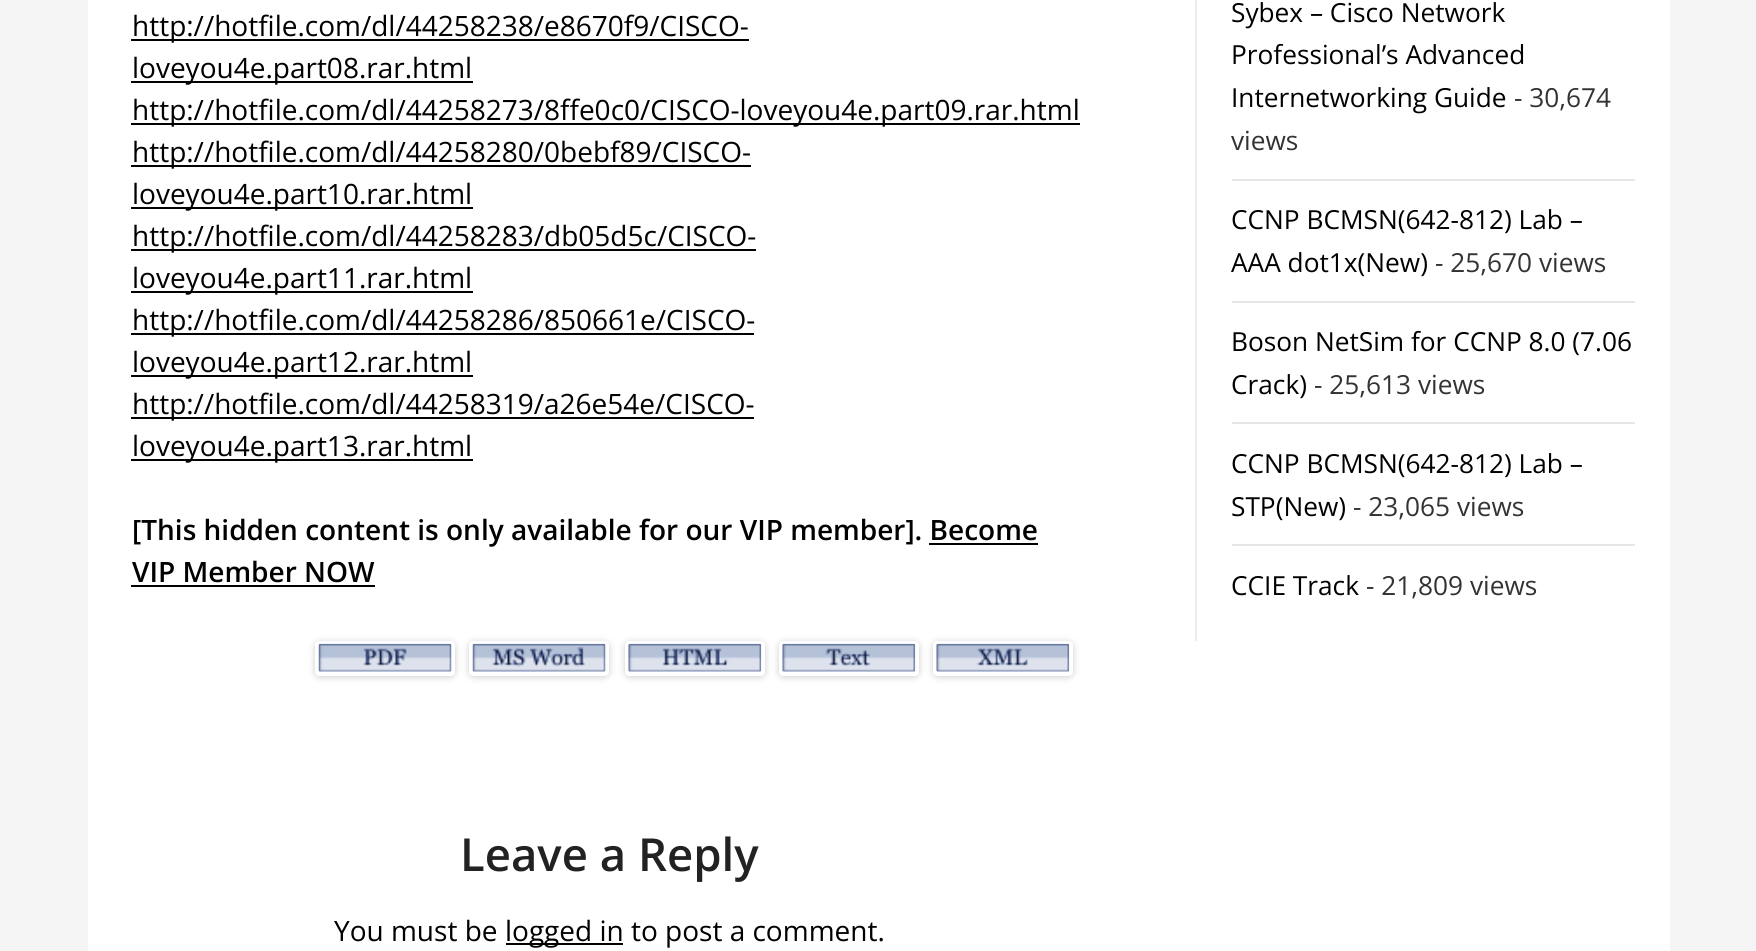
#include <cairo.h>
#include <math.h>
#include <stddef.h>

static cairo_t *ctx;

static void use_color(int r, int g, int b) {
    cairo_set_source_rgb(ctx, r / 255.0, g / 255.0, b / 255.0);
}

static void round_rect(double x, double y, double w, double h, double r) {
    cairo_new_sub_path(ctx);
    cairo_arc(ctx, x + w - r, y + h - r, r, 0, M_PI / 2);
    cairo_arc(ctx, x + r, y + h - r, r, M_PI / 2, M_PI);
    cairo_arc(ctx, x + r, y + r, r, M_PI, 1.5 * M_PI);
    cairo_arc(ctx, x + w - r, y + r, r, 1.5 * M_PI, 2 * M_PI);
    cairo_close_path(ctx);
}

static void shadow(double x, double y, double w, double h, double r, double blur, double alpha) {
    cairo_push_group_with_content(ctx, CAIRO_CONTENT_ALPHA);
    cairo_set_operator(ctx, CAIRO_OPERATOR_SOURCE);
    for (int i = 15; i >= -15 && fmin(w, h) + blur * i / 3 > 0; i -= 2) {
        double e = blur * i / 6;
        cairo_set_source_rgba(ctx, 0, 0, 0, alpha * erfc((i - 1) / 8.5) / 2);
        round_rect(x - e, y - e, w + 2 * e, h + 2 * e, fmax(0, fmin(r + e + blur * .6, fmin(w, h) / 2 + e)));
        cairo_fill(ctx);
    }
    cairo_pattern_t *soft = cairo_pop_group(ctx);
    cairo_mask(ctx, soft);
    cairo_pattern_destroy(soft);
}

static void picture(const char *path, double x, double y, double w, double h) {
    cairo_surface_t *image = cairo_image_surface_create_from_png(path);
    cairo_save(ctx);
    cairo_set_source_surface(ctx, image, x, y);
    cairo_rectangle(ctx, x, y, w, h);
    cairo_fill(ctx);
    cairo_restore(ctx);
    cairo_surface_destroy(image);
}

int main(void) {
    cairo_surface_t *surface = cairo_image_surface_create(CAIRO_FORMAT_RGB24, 1756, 951);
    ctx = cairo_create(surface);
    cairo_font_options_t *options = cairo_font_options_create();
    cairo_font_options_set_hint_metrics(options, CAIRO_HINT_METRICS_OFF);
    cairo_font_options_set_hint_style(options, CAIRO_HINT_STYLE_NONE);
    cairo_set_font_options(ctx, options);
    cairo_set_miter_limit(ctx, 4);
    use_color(245, 245, 245);
    cairo_paint(ctx);
    use_color(255, 255, 255);
    cairo_rectangle(ctx, 88, 0, 1582, 951);
    cairo_fill(ctx);
    use_color(0, 0, 0);
    cairo_rectangle(ctx, 131, 39, 618, 2);
    cairo_fill(ctx);
    cairo_select_font_face(ctx, "Open Sans", CAIRO_FONT_SLANT_NORMAL, CAIRO_FONT_WEIGHT_NORMAL);
    cairo_set_font_size(ctx, 28);
    cairo_move_to(ctx, 132, 36);
    cairo_show_text(ctx, "http://hotfile.com/dl/44258238/e8670f9/CISCO-");
    cairo_rectangle(ctx, 131, 81, 342, 2);
    cairo_fill(ctx);
    cairo_move_to(ctx, 132, 78);
    cairo_show_text(ctx, "loveyou4e.part08.rar.html");
    cairo_rectangle(ctx, 131, 123, 949, 2);
    cairo_fill(ctx);
    cairo_move_to(ctx, 132, 120);
    cairo_show_text(ctx, "http://hotfile.com/dl/44258273/8ffe0c0/CISCO-loveyou4e.part09.rar.html");
    cairo_rectangle(ctx, 131, 165, 620, 2);
    cairo_fill(ctx);
    cairo_move_to(ctx, 132, 162);
    cairo_show_text(ctx, "http://hotfile.com/dl/44258280/0bebf89/CISCO-");
    cairo_rectangle(ctx, 131, 207, 342, 2);
    cairo_fill(ctx);
    cairo_move_to(ctx, 132, 204);
    cairo_show_text(ctx, "loveyou4e.part10.rar.html");
    cairo_rectangle(ctx, 131, 249, 625, 2);
    cairo_fill(ctx);
    cairo_move_to(ctx, 132, 246);
    cairo_show_text(ctx, "http://hotfile.com/dl/44258283/db05d5c/CISCO-");
    cairo_rectangle(ctx, 131, 291, 342, 2);
    cairo_fill(ctx);
    cairo_move_to(ctx, 132, 288);
    cairo_show_text(ctx, "loveyou4e.part11.rar.html");
    cairo_rectangle(ctx, 131, 333, 623, 2);
    cairo_fill(ctx);
    cairo_move_to(ctx, 132, 330);
    cairo_show_text(ctx, "http://hotfile.com/dl/44258286/850661e/CISCO-");
    cairo_rectangle(ctx, 131, 375, 342, 2);
    cairo_fill(ctx);
    cairo_move_to(ctx, 132, 372);
    cairo_show_text(ctx, "loveyou4e.part12.rar.html");
    cairo_rectangle(ctx, 131, 417, 623, 2);
    cairo_fill(ctx);
    cairo_move_to(ctx, 132, 414);
    cairo_show_text(ctx, "http://hotfile.com/dl/44258319/a26e54e/CISCO-");
    cairo_rectangle(ctx, 131, 459, 342, 2);
    cairo_fill(ctx);
    cairo_move_to(ctx, 132, 456);
    cairo_show_text(ctx, "loveyou4e.part13.rar.html");
    cairo_select_font_face(ctx, "Open Sans SemiBold", CAIRO_FONT_SLANT_NORMAL, CAIRO_FONT_WEIGHT_NORMAL);
    cairo_move_to(ctx, 132, 540);
    cairo_show_text(ctx, "[This hidden content is only available for our VIP member]. Become");
    cairo_move_to(ctx, 132, 582);
    cairo_show_text(ctx, "VIP Member NOW");
    cairo_rectangle(ctx, 929, 543, 109, 2);
    cairo_fill(ctx);
    cairo_rectangle(ctx, 131, 585, 244, 2);
    cairo_fill(ctx);
    cairo_save(ctx);
    cairo_set_fill_rule(ctx, CAIRO_FILL_RULE_EVEN_ODD);
    cairo_new_path(ctx);
    cairo_move_to(ctx, 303, 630);
    cairo_line_to(ctx, 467, 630);
    cairo_line_to(ctx, 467, 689);
    cairo_line_to(ctx, 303, 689);
    cairo_close_path(ctx);
    cairo_move_to(ctx, 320, 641);
    cairo_line_to(ctx, 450, 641);
    cairo_curve_to(ctx, 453, 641, 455, 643, 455, 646);
    cairo_line_to(ctx, 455, 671);
    cairo_curve_to(ctx, 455, 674, 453, 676, 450, 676);
    cairo_line_to(ctx, 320, 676);
    cairo_curve_to(ctx, 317, 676, 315, 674, 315, 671);
    cairo_line_to(ctx, 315, 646);
    cairo_curve_to(ctx, 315, 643, 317, 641, 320, 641);
    cairo_close_path(ctx);
    cairo_clip(ctx);
    use_color(0, 0, 0);
    shadow(315, 642, 140, 35, 5, 3.5, 0.2);
    cairo_restore(ctx);
    cairo_save(ctx);
    cairo_set_fill_rule(ctx, CAIRO_FILL_RULE_EVEN_ODD);
    cairo_new_path(ctx);
    cairo_move_to(ctx, 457, 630);
    cairo_line_to(ctx, 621, 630);
    cairo_line_to(ctx, 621, 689);
    cairo_line_to(ctx, 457, 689);
    cairo_close_path(ctx);
    cairo_move_to(ctx, 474, 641);
    cairo_line_to(ctx, 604, 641);
    cairo_curve_to(ctx, 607, 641, 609, 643, 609, 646);
    cairo_line_to(ctx, 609, 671);
    cairo_curve_to(ctx, 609, 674, 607, 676, 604, 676);
    cairo_line_to(ctx, 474, 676);
    cairo_curve_to(ctx, 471, 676, 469, 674, 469, 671);
    cairo_line_to(ctx, 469, 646);
    cairo_curve_to(ctx, 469, 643, 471, 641, 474, 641);
    cairo_close_path(ctx);
    cairo_clip(ctx);
    use_color(0, 0, 0);
    shadow(469, 642, 140, 35, 5, 3.5, 0.2);
    cairo_restore(ctx);
    cairo_save(ctx);
    cairo_set_fill_rule(ctx, CAIRO_FILL_RULE_EVEN_ODD);
    cairo_new_path(ctx);
    cairo_move_to(ctx, 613, 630);
    cairo_line_to(ctx, 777, 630);
    cairo_line_to(ctx, 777, 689);
    cairo_line_to(ctx, 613, 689);
    cairo_close_path(ctx);
    cairo_move_to(ctx, 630, 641);
    cairo_line_to(ctx, 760, 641);
    cairo_curve_to(ctx, 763, 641, 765, 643, 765, 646);
    cairo_line_to(ctx, 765, 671);
    cairo_curve_to(ctx, 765, 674, 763, 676, 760, 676);
    cairo_line_to(ctx, 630, 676);
    cairo_curve_to(ctx, 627, 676, 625, 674, 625, 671);
    cairo_line_to(ctx, 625, 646);
    cairo_curve_to(ctx, 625, 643, 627, 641, 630, 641);
    cairo_close_path(ctx);
    cairo_clip(ctx);
    use_color(0, 0, 0);
    shadow(625, 642, 140, 35, 5, 3.5, 0.2);
    cairo_restore(ctx);
    cairo_save(ctx);
    cairo_set_fill_rule(ctx, CAIRO_FILL_RULE_EVEN_ODD);
    cairo_new_path(ctx);
    cairo_move_to(ctx, 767, 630);
    cairo_line_to(ctx, 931, 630);
    cairo_line_to(ctx, 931, 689);
    cairo_line_to(ctx, 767, 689);
    cairo_close_path(ctx);
    cairo_move_to(ctx, 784, 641);
    cairo_line_to(ctx, 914, 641);
    cairo_curve_to(ctx, 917, 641, 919, 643, 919, 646);
    cairo_line_to(ctx, 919, 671);
    cairo_curve_to(ctx, 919, 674, 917, 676, 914, 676);
    cairo_line_to(ctx, 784, 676);
    cairo_curve_to(ctx, 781, 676, 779, 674, 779, 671);
    cairo_line_to(ctx, 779, 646);
    cairo_curve_to(ctx, 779, 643, 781, 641, 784, 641);
    cairo_close_path(ctx);
    cairo_clip(ctx);
    use_color(0, 0, 0);
    shadow(779, 642, 140, 35, 5, 3.5, 0.2);
    cairo_restore(ctx);
    cairo_save(ctx);
    cairo_set_fill_rule(ctx, CAIRO_FILL_RULE_EVEN_ODD);
    cairo_new_path(ctx);
    cairo_move_to(ctx, 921, 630);
    cairo_line_to(ctx, 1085, 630);
    cairo_line_to(ctx, 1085, 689);
    cairo_line_to(ctx, 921, 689);
    cairo_close_path(ctx);
    cairo_move_to(ctx, 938, 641);
    cairo_line_to(ctx, 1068, 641);
    cairo_curve_to(ctx, 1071, 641, 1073, 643, 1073, 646);
    cairo_line_to(ctx, 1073, 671);
    cairo_curve_to(ctx, 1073, 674, 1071, 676, 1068, 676);
    cairo_line_to(ctx, 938, 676);
    cairo_curve_to(ctx, 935, 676, 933, 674, 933, 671);
    cairo_line_to(ctx, 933, 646);
    cairo_curve_to(ctx, 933, 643, 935, 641, 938, 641);
    cairo_close_path(ctx);
    cairo_clip(ctx);
    use_color(0, 0, 0);
    shadow(933, 642, 140, 35, 5, 3.5, 0.2);
    cairo_restore(ctx);
    picture("img1.png", 318, 643, 134, 29);
    picture("img2.png", 472, 643, 134, 29);
    picture("img3.png", 628, 643, 134, 29);
    picture("img4.png", 782, 643, 134, 29);
    picture("img5.png", 936, 643, 134, 29);
    cairo_set_font_size(ctx, 45.5);
    use_color(34, 34, 34);
    cairo_move_to(ctx, 460, 871);
    cairo_show_text(ctx, "Leave a Reply");
    cairo_select_font_face(ctx, "Open Sans", CAIRO_FONT_SLANT_NORMAL, CAIRO_FONT_WEIGHT_NORMAL);
    cairo_set_font_size(ctx, 28);
    use_color(0, 0, 0);
    cairo_move_to(ctx, 334, 941);
    cairo_show_text(ctx, "You must be");
    cairo_rectangle(ctx, 506, 943, 117, 2);
    cairo_fill(ctx);
    cairo_move_to(ctx, 505, 941);
    cairo_show_text(ctx, "logged in to post a comment.");
    use_color(236, 236, 236);
    cairo_rectangle(ctx, 1195, 0, 2, 641);
    cairo_fill(ctx);
    use_color(230, 230, 230);
    cairo_rectangle(ctx, 1232, 179, 403, 2);
    cairo_fill(ctx);
    cairo_set_font_size(ctx, 26.25);
    use_color(0, 0, 0);
    cairo_move_to(ctx, 1231, 22);
    cairo_show_text(ctx, "Sybex – Cisco Network");
    cairo_move_to(ctx, 1231, 64);
    cairo_show_text(ctx, "Professional’s Advanced");
    cairo_move_to(ctx, 1231, 107);
    cairo_show_text(ctx, "Internetworking Guide");
    use_color(51, 51, 51);
    cairo_move_to(ctx, 1514, 107);
    cairo_show_text(ctx, "- 30,674");
    cairo_move_to(ctx, 1231, 150);
    cairo_show_text(ctx, "views");
    use_color(230, 230, 230);
    cairo_rectangle(ctx, 1232, 301, 403, 2);
    cairo_fill(ctx);
    use_color(0, 0, 0);
    cairo_move_to(ctx, 1231, 229);
    cairo_show_text(ctx, "CCNP BCMSN(642-812) Lab –");
    cairo_move_to(ctx, 1231, 272);
    cairo_show_text(ctx, "AAA dot1x(New)");
    use_color(51, 51, 51);
    cairo_move_to(ctx, 1435, 272);
    cairo_show_text(ctx, "- 25,670 views");
    use_color(230, 230, 230);
    cairo_rectangle(ctx, 1232, 422, 403, 2);
    cairo_fill(ctx);
    use_color(0, 0, 0);
    cairo_move_to(ctx, 1231, 351);
    cairo_show_text(ctx, "Boson NetSim for CCNP 8.0 (7.06");
    cairo_move_to(ctx, 1231, 394);
    cairo_show_text(ctx, "Crack)");
    use_color(51, 51, 51);
    cairo_move_to(ctx, 1314, 394);
    cairo_show_text(ctx, "- 25,613 views");
    use_color(230, 230, 230);
    cairo_rectangle(ctx, 1232, 544, 403, 2);
    cairo_fill(ctx);
    use_color(0, 0, 0);
    cairo_move_to(ctx, 1231, 473);
    cairo_show_text(ctx, "CCNP BCMSN(642-812) Lab –");
    cairo_move_to(ctx, 1231, 516);
    cairo_show_text(ctx, "STP(New)");
    use_color(51, 51, 51);
    cairo_move_to(ctx, 1353, 516);
    cairo_show_text(ctx, "- 23,065 views");
    use_color(0, 0, 0);
    cairo_move_to(ctx, 1231, 595);
    cairo_show_text(ctx, "CCIE Track");
    use_color(51, 51, 51);
    cairo_move_to(ctx, 1366, 595);
    cairo_show_text(ctx, "- 21,809 views");
    cairo_surface_write_to_png(surface, "result.png");
    cairo_font_options_destroy(options);
    cairo_destroy(ctx);
    cairo_surface_destroy(surface);
    return 0;
}
